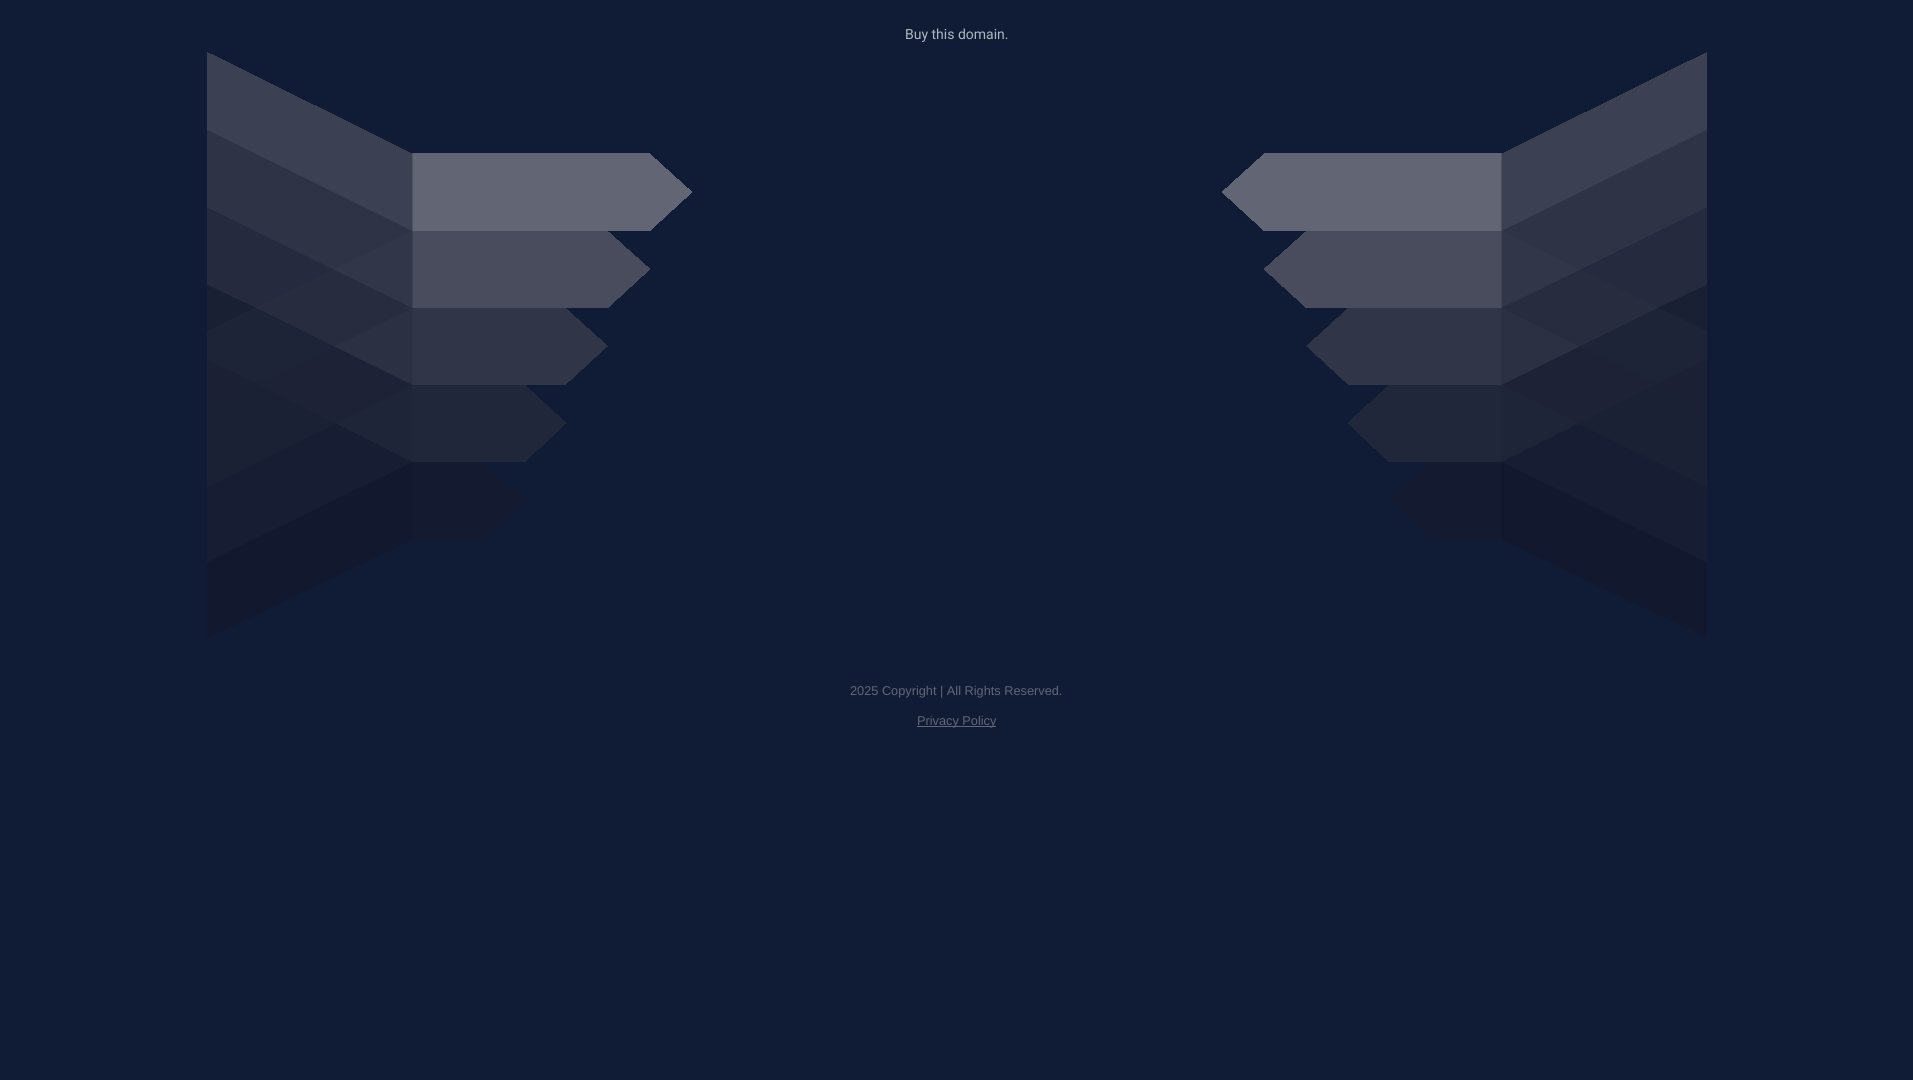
#include <cairo.h>
#include <math.h>
#include <stddef.h>

static cairo_t *ctx;

static void use_color(int r, int g, int b) {
    cairo_set_source_rgb(ctx, r / 255.0, g / 255.0, b / 255.0);
}

static void picture(const char *path, double x, double y, double w, double h) {
    cairo_surface_t *image = cairo_image_surface_create_from_png(path);
    cairo_save(ctx);
    cairo_set_source_surface(ctx, image, x, y);
    cairo_rectangle(ctx, x, y, w, h);
    cairo_fill(ctx);
    cairo_restore(ctx);
    cairo_surface_destroy(image);
}

int main(void) {
    cairo_surface_t *surface = cairo_image_surface_create(CAIRO_FORMAT_RGB24, 1913, 1080);
    ctx = cairo_create(surface);
    cairo_font_options_t *options = cairo_font_options_create();
    cairo_font_options_set_hint_metrics(options, CAIRO_HINT_METRICS_OFF);
    cairo_font_options_set_hint_style(options, CAIRO_HINT_STYLE_NONE);
    cairo_set_font_options(ctx, options);
    cairo_set_miter_limit(ctx, 4);
    use_color(16, 28, 54);
    cairo_paint(ctx);
    cairo_select_font_face(ctx, "Roboto", CAIRO_FONT_SLANT_NORMAL, CAIRO_FONT_WEIGHT_NORMAL);
    cairo_set_font_size(ctx, 14);
    use_color(171, 184, 191);
    cairo_move_to(ctx, 905, 39);
    cairo_show_text(ctx, "Buy this domain.");
    picture("img1.png", 207, 52, 1500, 586);
    cairo_select_font_face(ctx, "Liberation Sans", CAIRO_FONT_SLANT_NORMAL, CAIRO_FONT_WEIGHT_NORMAL);
    cairo_set_font_size(ctx, 12.75);
    use_color(98, 101, 116);
    cairo_move_to(ctx, 850, 695);
    cairo_show_text(ctx, "2025 Copyright | All Rights Reserved.");
    cairo_rectangle(ctx, 917, 726, 79, 1);
    cairo_fill(ctx);
    cairo_move_to(ctx, 917, 725);
    cairo_show_text(ctx, "Privacy Policy");
    cairo_surface_write_to_png(surface, "result.png");
    cairo_font_options_destroy(options);
    cairo_destroy(ctx);
    cairo_surface_destroy(surface);
    return 0;
}
